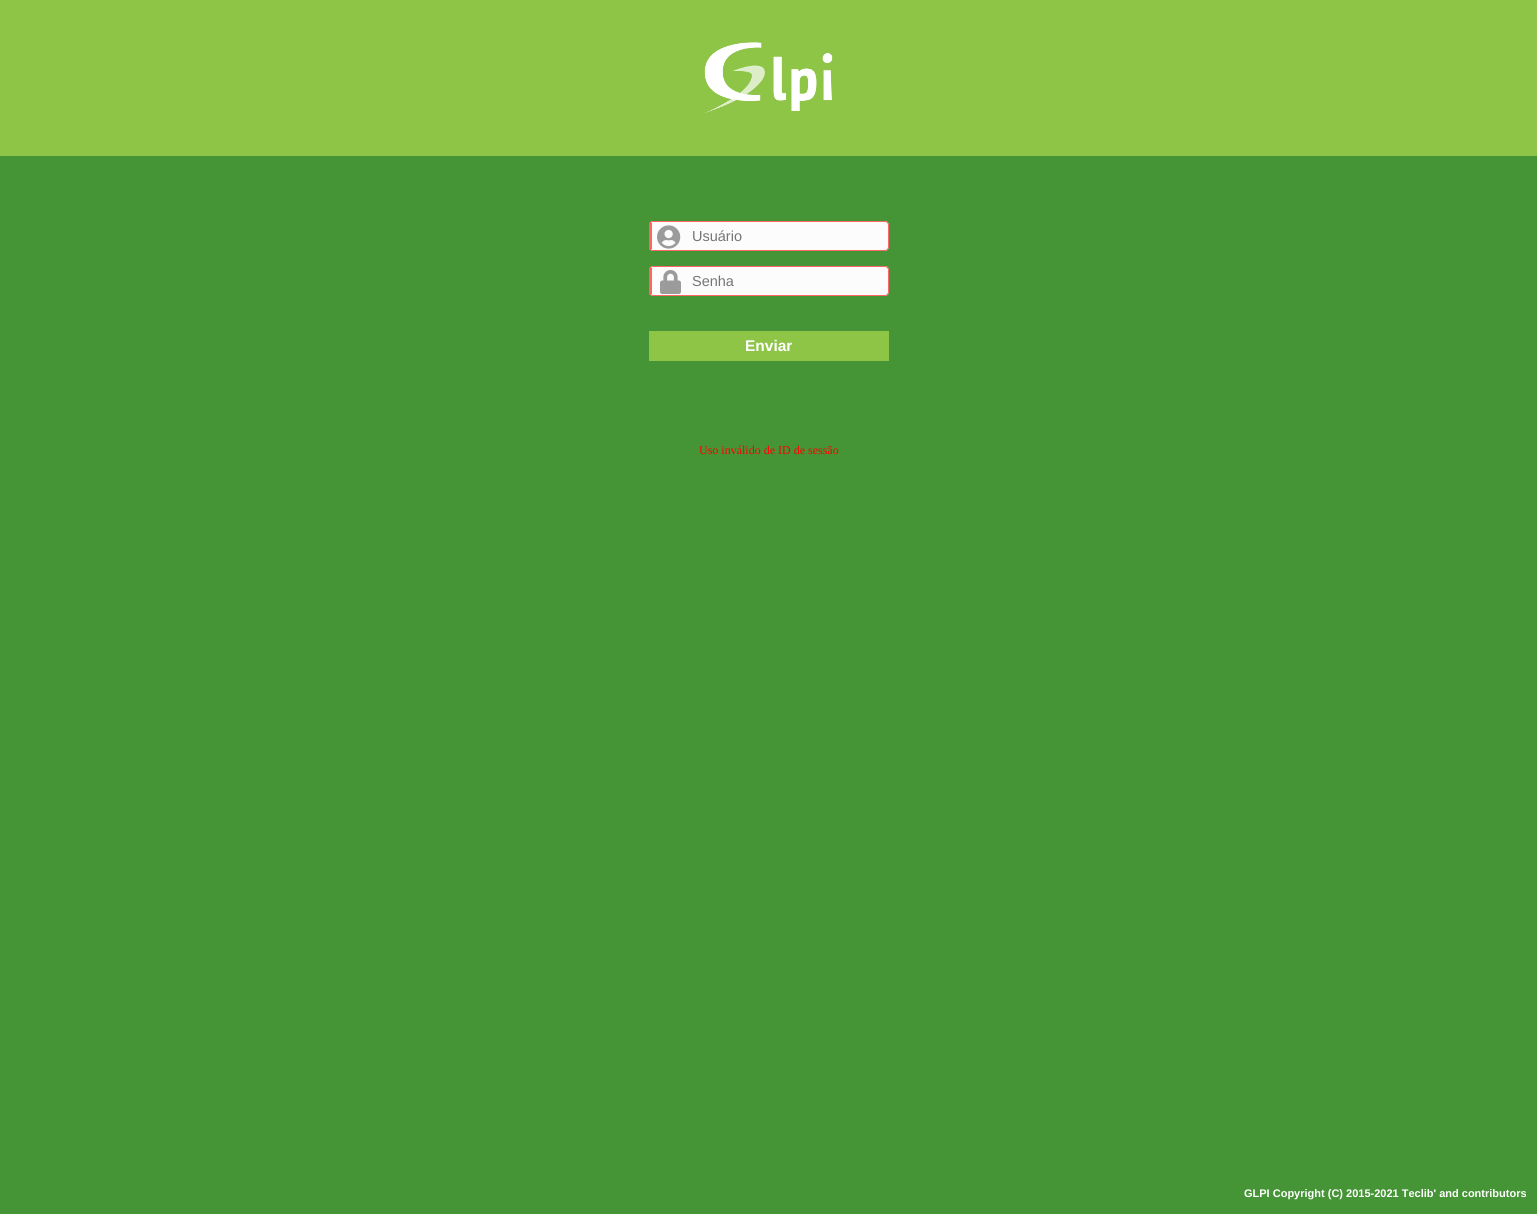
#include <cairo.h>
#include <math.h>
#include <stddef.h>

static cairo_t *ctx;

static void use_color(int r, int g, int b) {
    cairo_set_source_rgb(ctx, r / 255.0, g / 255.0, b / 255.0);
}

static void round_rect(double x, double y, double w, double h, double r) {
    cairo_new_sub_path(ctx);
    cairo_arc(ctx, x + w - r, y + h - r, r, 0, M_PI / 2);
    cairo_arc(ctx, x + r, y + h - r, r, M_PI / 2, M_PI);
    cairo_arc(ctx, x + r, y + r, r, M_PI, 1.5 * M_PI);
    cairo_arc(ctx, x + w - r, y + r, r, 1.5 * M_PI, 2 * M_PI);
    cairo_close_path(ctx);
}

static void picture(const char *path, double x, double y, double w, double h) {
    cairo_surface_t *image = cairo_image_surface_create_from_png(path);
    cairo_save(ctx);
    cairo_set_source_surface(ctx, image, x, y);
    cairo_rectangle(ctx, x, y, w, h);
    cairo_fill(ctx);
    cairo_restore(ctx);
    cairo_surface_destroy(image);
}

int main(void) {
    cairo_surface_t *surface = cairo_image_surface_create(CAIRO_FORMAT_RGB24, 1537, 1214);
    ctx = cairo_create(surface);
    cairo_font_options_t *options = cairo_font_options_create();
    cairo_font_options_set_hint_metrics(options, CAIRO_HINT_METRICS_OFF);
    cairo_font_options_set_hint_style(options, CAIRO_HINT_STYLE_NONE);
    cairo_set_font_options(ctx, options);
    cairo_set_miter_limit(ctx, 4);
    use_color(69, 148, 54);
    cairo_paint(ctx);
    use_color(142, 197, 71);
    cairo_rectangle(ctx, 0, 0, 1537, 156);
    cairo_fill(ctx);
    picture("img1.png", 704, 42, 129, 72);
    use_color(252, 252, 252);
    round_rect(649, 221, 240, 30, 4);
    cairo_fill(ctx);
    round_rect(649.5, 221.5, 239, 29, 3.5);
    cairo_set_source_rgba(ctx, 1, 0, 0, 0.6);
    cairo_set_line_width(ctx, 1);
    cairo_stroke(ctx);
    picture("img2.png", 657, 225, 24, 24);
    cairo_rectangle(ctx, 650, 223, 2, 26);
    cairo_fill(ctx);
    cairo_select_font_face(ctx, "Liberation Sans", CAIRO_FONT_SLANT_NORMAL, CAIRO_FONT_WEIGHT_NORMAL);
    cairo_set_font_size(ctx, 14.5);
    use_color(117, 117, 117);
    cairo_move_to(ctx, 692, 241);
    cairo_show_text(ctx, "Usuário");
    use_color(252, 252, 252);
    round_rect(649, 266, 240, 30, 4);
    cairo_fill(ctx);
    round_rect(649.5, 266.5, 239, 29, 3.5);
    cairo_set_source_rgba(ctx, 1, 0, 0, 0.6);
    cairo_stroke(ctx);
    picture("img3.png", 660, 270, 21, 24);
    cairo_rectangle(ctx, 650, 268, 2, 26);
    cairo_fill(ctx);
    use_color(117, 117, 117);
    cairo_move_to(ctx, 692, 286);
    cairo_show_text(ctx, "Senha");
    use_color(142, 197, 71);
    cairo_rectangle(ctx, 649, 331, 240, 30);
    cairo_fill(ctx);
    cairo_select_font_face(ctx, "Liberation Sans", CAIRO_FONT_SLANT_NORMAL, CAIRO_FONT_WEIGHT_BOLD);
    cairo_set_font_size(ctx, 15.5);
    use_color(255, 255, 255);
    cairo_move_to(ctx, 745, 351);
    cairo_show_text(ctx, "Enviar");
    cairo_select_font_face(ctx, "Liberation Serif", CAIRO_FONT_SLANT_NORMAL, CAIRO_FONT_WEIGHT_NORMAL);
    cairo_set_font_size(ctx, 12);
    use_color(255, 0, 0);
    cairo_move_to(ctx, 699, 454);
    cairo_show_text(ctx, "Uso inválido de ID de sessão");
    cairo_select_font_face(ctx, "Liberation Sans", CAIRO_FONT_SLANT_NORMAL, CAIRO_FONT_WEIGHT_BOLD);
    cairo_set_font_size(ctx, 11);
    use_color(255, 255, 255);
    cairo_move_to(ctx, 1244, 1197);
    cairo_show_text(ctx, "GLPI Copyright (C) 2015-2021 Teclib' and contributors");
    cairo_surface_write_to_png(surface, "result.png");
    cairo_font_options_destroy(options);
    cairo_destroy(ctx);
    cairo_surface_destroy(surface);
    return 0;
}
